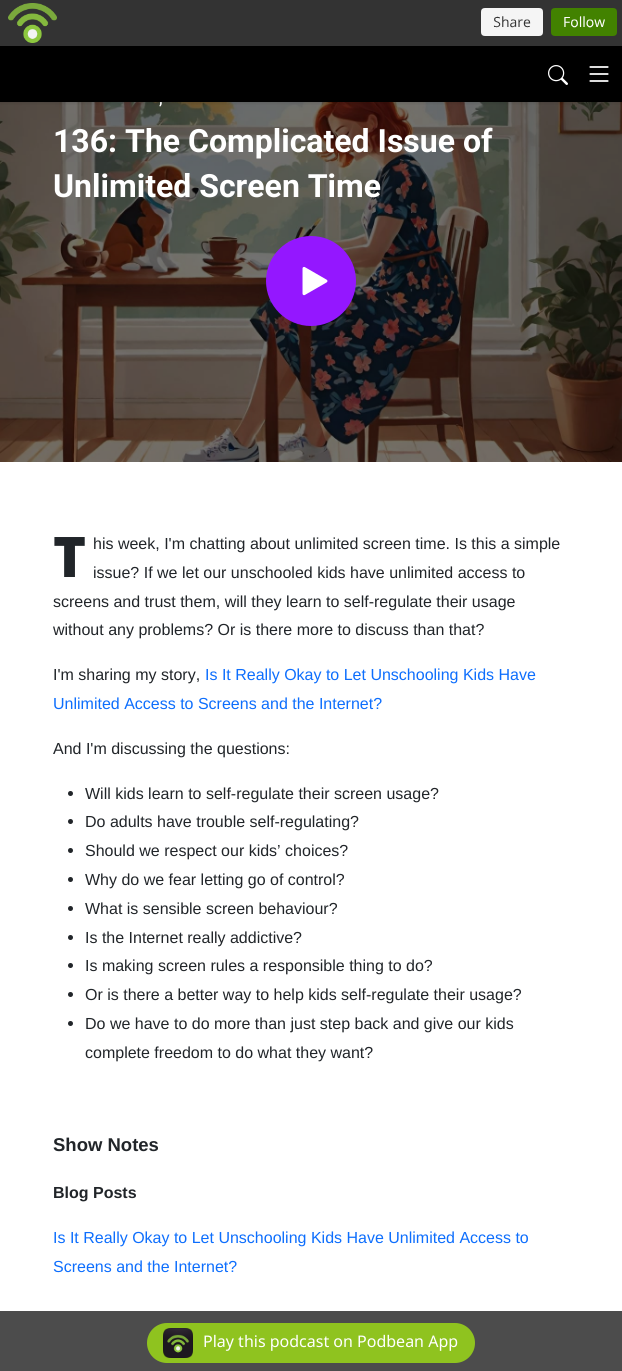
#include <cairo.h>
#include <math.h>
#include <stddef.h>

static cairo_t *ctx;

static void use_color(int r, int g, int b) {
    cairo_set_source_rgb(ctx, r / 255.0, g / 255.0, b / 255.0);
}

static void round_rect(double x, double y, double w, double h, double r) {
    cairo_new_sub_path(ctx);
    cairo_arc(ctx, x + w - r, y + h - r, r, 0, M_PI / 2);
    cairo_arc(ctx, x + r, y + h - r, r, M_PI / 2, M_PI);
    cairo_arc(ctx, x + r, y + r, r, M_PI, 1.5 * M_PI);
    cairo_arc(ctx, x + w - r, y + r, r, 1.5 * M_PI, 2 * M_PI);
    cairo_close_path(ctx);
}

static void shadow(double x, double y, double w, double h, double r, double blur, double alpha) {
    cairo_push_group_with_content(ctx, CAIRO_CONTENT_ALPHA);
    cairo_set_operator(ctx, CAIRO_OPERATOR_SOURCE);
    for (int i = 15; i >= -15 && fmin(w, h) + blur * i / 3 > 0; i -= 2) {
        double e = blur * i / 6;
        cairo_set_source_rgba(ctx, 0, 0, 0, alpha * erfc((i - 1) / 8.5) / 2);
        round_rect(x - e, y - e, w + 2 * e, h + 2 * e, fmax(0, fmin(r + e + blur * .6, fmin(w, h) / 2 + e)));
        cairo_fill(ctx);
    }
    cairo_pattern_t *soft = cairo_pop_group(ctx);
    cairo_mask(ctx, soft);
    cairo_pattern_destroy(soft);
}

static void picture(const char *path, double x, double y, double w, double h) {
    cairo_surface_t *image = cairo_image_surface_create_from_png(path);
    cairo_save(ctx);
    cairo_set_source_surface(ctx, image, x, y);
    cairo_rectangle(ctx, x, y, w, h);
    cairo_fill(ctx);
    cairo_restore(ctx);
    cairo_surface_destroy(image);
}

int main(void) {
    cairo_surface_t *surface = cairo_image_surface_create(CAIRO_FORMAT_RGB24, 622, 1371);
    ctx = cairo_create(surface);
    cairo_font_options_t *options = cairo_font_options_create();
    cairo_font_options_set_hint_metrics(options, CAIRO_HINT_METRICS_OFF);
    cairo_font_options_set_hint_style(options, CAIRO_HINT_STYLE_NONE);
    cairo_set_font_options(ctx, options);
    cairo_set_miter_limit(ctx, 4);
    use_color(255, 255, 255);
    cairo_paint(ctx);
    picture("img4.png", 0, 102, 622, 360);
    use_color(0, 0, 0);
    shadow(0, 46, 622, 56, 0, 2, 0.2);
    use_color(51, 51, 51);
    cairo_rectangle(ctx, 0, 0, 622, 46);
    cairo_fill(ctx);
    picture("img1.png", 8, 3, 609, 40);
    use_color(0, 0, 0);
    cairo_rectangle(ctx, 0, 46, 622, 56);
    cairo_fill(ctx);
    picture("img2.png", 548, 65, 20, 20);
    picture("img3.png", 589, 66, 20, 16);
    cairo_select_font_face(ctx, "Roboto", CAIRO_FONT_SLANT_NORMAL, CAIRO_FONT_WEIGHT_NORMAL);
    cairo_set_font_size(ctx, 18);
    use_color(255, 255, 255);
    cairo_move_to(ctx, 159, 104);
    cairo_show_text(ctx, ",");
    cairo_select_font_face(ctx, "Roboto", CAIRO_FONT_SLANT_NORMAL, CAIRO_FONT_WEIGHT_BOLD);
    cairo_set_font_size(ctx, 32);
    cairo_move_to(ctx, 53, 152);
    cairo_show_text(ctx, "136: The Complicated Issue of");
    cairo_move_to(ctx, 53, 197);
    cairo_show_text(ctx, "Unlimited Screen Time");
    use_color(148, 23, 255);
    cairo_new_path(ctx);
    cairo_arc(ctx, 311, 281, 45, 0, 2 * M_PI);
    cairo_fill(ctx);
    picture("img5.png", 302, 266, 26, 30);
    cairo_select_font_face(ctx, "Liberation Sans", CAIRO_FONT_SLANT_NORMAL, CAIRO_FONT_WEIGHT_NORMAL);
    cairo_set_font_size(ctx, 16);
    use_color(33, 37, 41);
    cairo_move_to(ctx, 93, 549);
    cairo_show_text(ctx, "his week, I'm chatting about unlimited screen time. Is this a simple");
    cairo_move_to(ctx, 93, 578);
    cairo_show_text(ctx, "issue? If we let our unschooled kids have unlimited access to");
    cairo_move_to(ctx, 53, 607);
    cairo_show_text(ctx, "screens and trust them, will they learn to self-regulate their usage");
    cairo_move_to(ctx, 53, 635);
    cairo_show_text(ctx, "without any problems? Or is there more to discuss than that?");
    cairo_select_font_face(ctx, "Noto Sans Black", CAIRO_FONT_SLANT_NORMAL, CAIRO_FONT_WEIGHT_NORMAL);
    cairo_set_font_size(ctx, 56);
    cairo_move_to(ctx, 53, 577);
    cairo_show_text(ctx, "T");
    cairo_select_font_face(ctx, "Liberation Sans", CAIRO_FONT_SLANT_NORMAL, CAIRO_FONT_WEIGHT_NORMAL);
    cairo_set_font_size(ctx, 16);
    cairo_move_to(ctx, 53, 680);
    cairo_show_text(ctx, "I'm sharing my story,");
    use_color(13, 110, 253);
    cairo_move_to(ctx, 205, 680);
    cairo_show_text(ctx, "Is It Really Okay to Let Unschooling Kids Have");
    cairo_move_to(ctx, 53, 709);
    cairo_show_text(ctx, "Unlimited Access to Screens and the Internet?");
    use_color(33, 37, 41);
    cairo_move_to(ctx, 53, 754);
    cairo_show_text(ctx, "And I'm discussing the questions:");
    cairo_new_path(ctx);
    cairo_arc(ctx, 70.5, 793.5, 2.5, 0, 2 * M_PI);
    cairo_fill(ctx);
    cairo_move_to(ctx, 85, 799);
    cairo_show_text(ctx, "Will kids learn to self-regulate their screen usage?");
    cairo_new_path(ctx);
    cairo_arc(ctx, 70.5, 821.5, 2.5, 0, 2 * M_PI);
    cairo_fill(ctx);
    cairo_move_to(ctx, 85, 827);
    cairo_show_text(ctx, "Do adults have trouble self-regulating?");
    cairo_new_path(ctx);
    cairo_arc(ctx, 70.5, 850.5, 2.5, 0, 2 * M_PI);
    cairo_fill(ctx);
    cairo_move_to(ctx, 85, 856);
    cairo_show_text(ctx, "Should we respect our kids’ choices?");
    cairo_new_path(ctx);
    cairo_arc(ctx, 70.5, 879.5, 2.5, 0, 2 * M_PI);
    cairo_fill(ctx);
    cairo_move_to(ctx, 85, 885);
    cairo_show_text(ctx, "Why do we fear letting go of control?");
    cairo_new_path(ctx);
    cairo_arc(ctx, 70.5, 908.5, 2.5, 0, 2 * M_PI);
    cairo_fill(ctx);
    cairo_move_to(ctx, 85, 914);
    cairo_show_text(ctx, "What is sensible screen behaviour?");
    cairo_new_path(ctx);
    cairo_arc(ctx, 70.5, 937.5, 2.5, 0, 2 * M_PI);
    cairo_fill(ctx);
    cairo_move_to(ctx, 85, 943);
    cairo_show_text(ctx, "Is the Internet really addictive?");
    cairo_new_path(ctx);
    cairo_arc(ctx, 70.5, 965.5, 2.5, 0, 2 * M_PI);
    cairo_fill(ctx);
    cairo_move_to(ctx, 85, 971);
    cairo_show_text(ctx, "Is making screen rules a responsible thing to do?");
    cairo_new_path(ctx);
    cairo_arc(ctx, 70.5, 994.5, 2.5, 0, 2 * M_PI);
    cairo_fill(ctx);
    cairo_move_to(ctx, 85, 1000);
    cairo_show_text(ctx, "Or is there a better way to help kids self-regulate their usage?");
    cairo_new_path(ctx);
    cairo_arc(ctx, 70.5, 1023.5, 2.5, 0, 2 * M_PI);
    cairo_fill(ctx);
    cairo_move_to(ctx, 85, 1029);
    cairo_show_text(ctx, "Do we have to do more than just step back and give our kids");
    cairo_move_to(ctx, 85, 1058);
    cairo_show_text(ctx, "complete freedom to do what they want?");
    cairo_select_font_face(ctx, "Liberation Sans", CAIRO_FONT_SLANT_NORMAL, CAIRO_FONT_WEIGHT_BOLD);
    cairo_set_font_size(ctx, 18.5);
    cairo_move_to(ctx, 53, 1151);
    cairo_show_text(ctx, "Show Notes");
    cairo_set_font_size(ctx, 16);
    cairo_move_to(ctx, 53, 1198);
    cairo_show_text(ctx, "Blog Posts");
    cairo_select_font_face(ctx, "Liberation Sans", CAIRO_FONT_SLANT_NORMAL, CAIRO_FONT_WEIGHT_NORMAL);
    use_color(13, 110, 253);
    cairo_move_to(ctx, 53, 1243);
    cairo_show_text(ctx, "Is It Really Okay to Let Unschooling Kids Have Unlimited Access to");
    cairo_move_to(ctx, 53, 1272);
    cairo_show_text(ctx, "Screens and the Internet?");
    cairo_set_source_rgba(ctx, 0, 0, 0, 0.7);
    cairo_rectangle(ctx, 0, 1311, 622, 60);
    cairo_fill(ctx);
    use_color(143, 195, 31);
    round_rect(147, 1323, 328, 40, 20);
    cairo_fill(ctx);
    picture("img6.png", 163, 1328, 30, 30);
    cairo_select_font_face(ctx, "Noto Sans", CAIRO_FONT_SLANT_NORMAL, CAIRO_FONT_WEIGHT_NORMAL);
    use_color(255, 255, 255);
    cairo_move_to(ctx, 203, 1347);
    cairo_show_text(ctx, "Play this podcast on Podbean App");
    cairo_surface_write_to_png(surface, "result.png");
    cairo_font_options_destroy(options);
    cairo_destroy(ctx);
    cairo_surface_destroy(surface);
    return 0;
}
